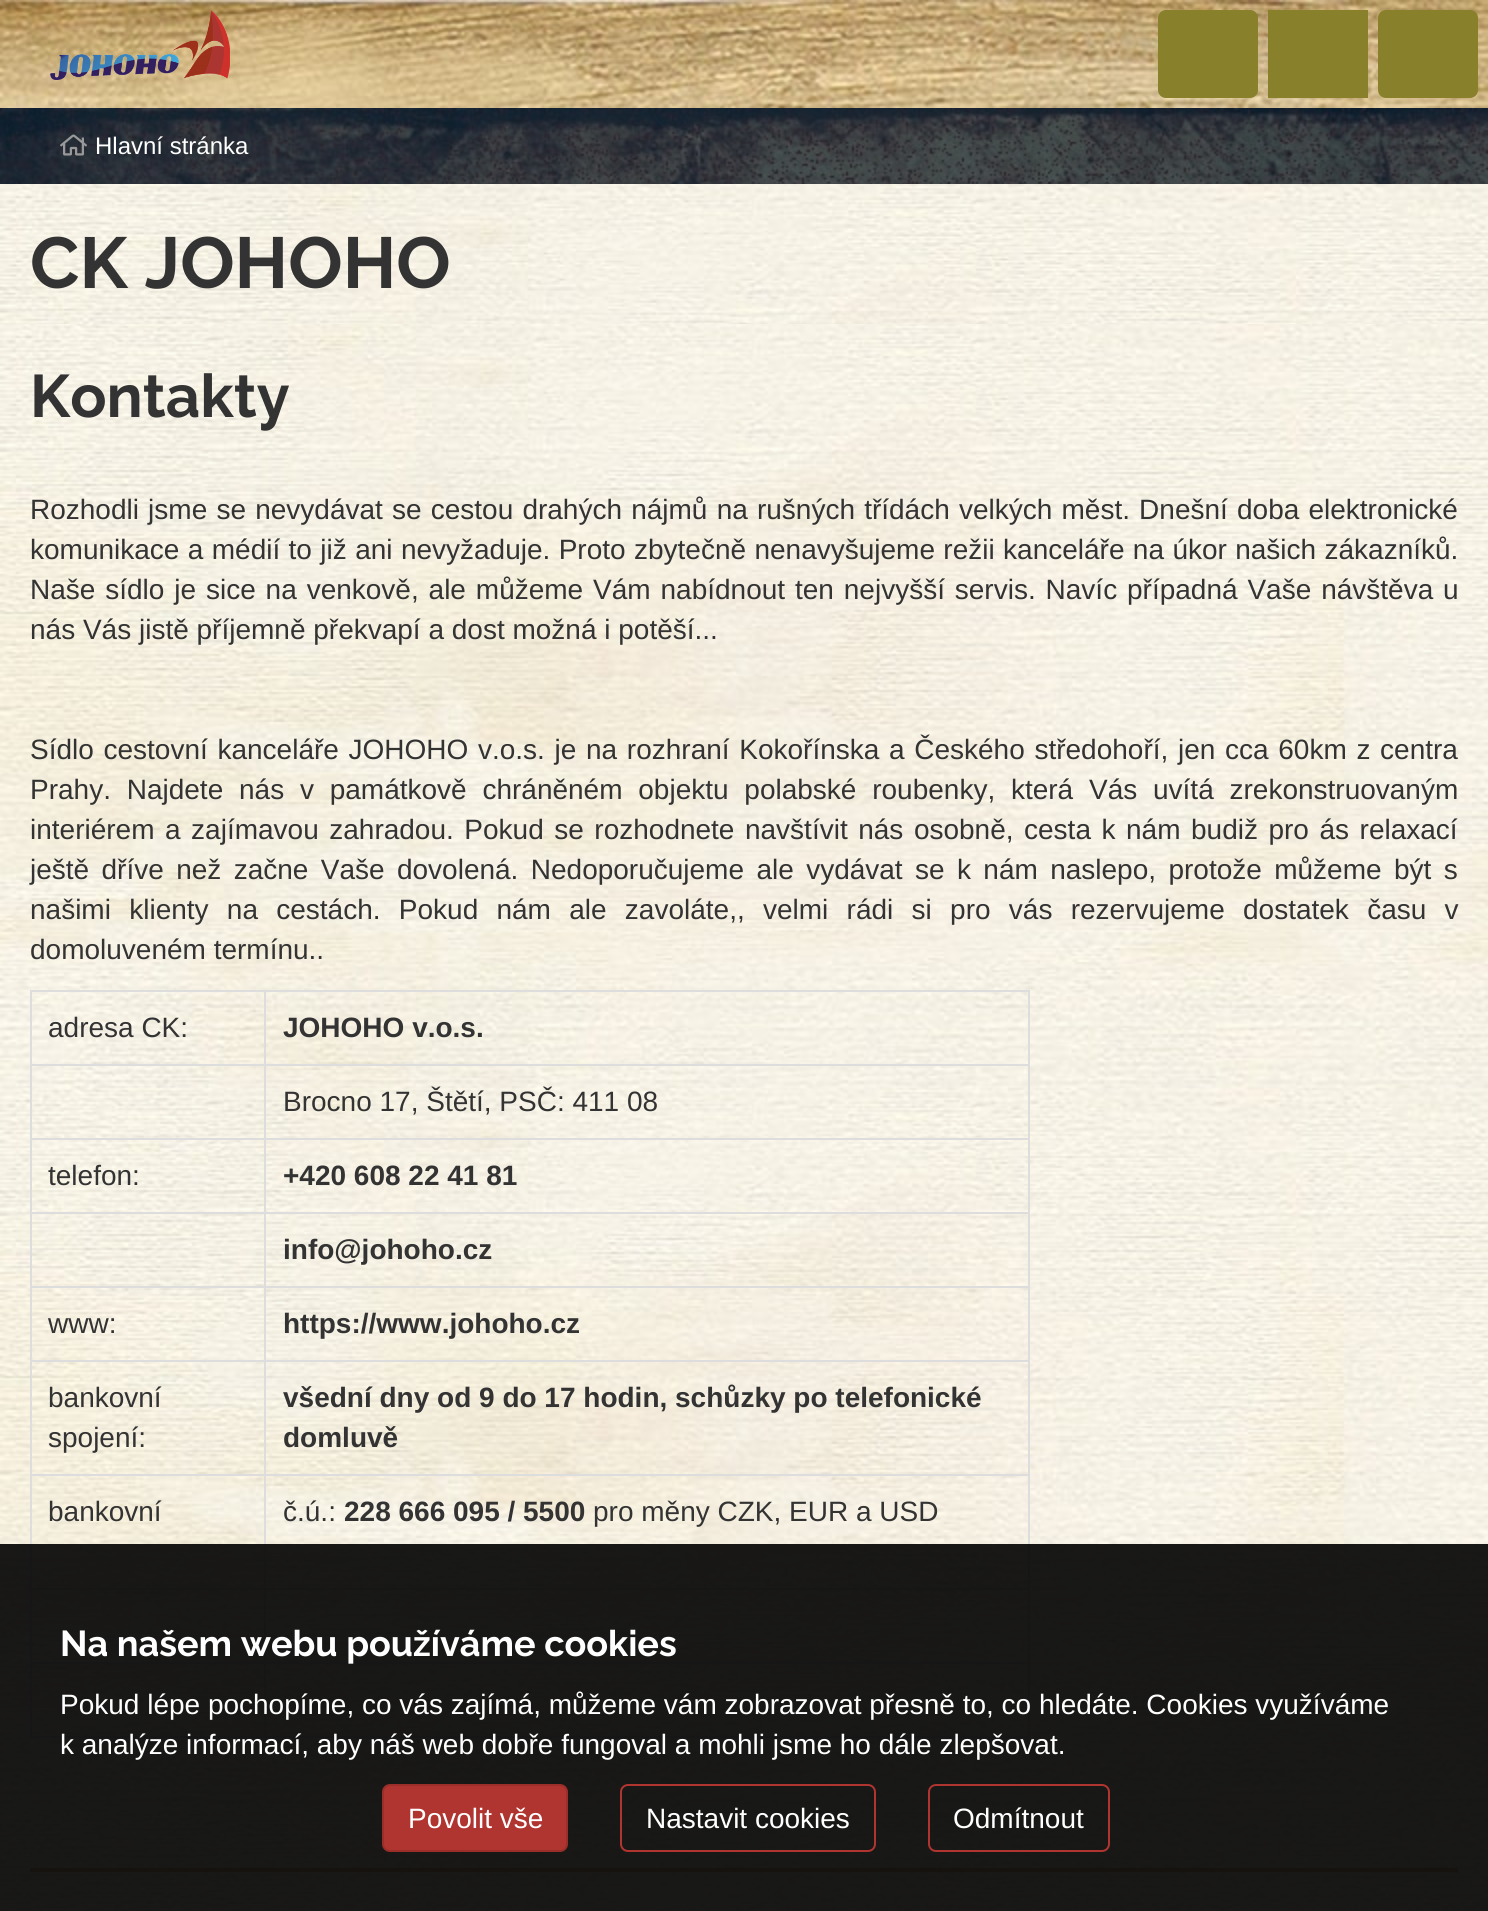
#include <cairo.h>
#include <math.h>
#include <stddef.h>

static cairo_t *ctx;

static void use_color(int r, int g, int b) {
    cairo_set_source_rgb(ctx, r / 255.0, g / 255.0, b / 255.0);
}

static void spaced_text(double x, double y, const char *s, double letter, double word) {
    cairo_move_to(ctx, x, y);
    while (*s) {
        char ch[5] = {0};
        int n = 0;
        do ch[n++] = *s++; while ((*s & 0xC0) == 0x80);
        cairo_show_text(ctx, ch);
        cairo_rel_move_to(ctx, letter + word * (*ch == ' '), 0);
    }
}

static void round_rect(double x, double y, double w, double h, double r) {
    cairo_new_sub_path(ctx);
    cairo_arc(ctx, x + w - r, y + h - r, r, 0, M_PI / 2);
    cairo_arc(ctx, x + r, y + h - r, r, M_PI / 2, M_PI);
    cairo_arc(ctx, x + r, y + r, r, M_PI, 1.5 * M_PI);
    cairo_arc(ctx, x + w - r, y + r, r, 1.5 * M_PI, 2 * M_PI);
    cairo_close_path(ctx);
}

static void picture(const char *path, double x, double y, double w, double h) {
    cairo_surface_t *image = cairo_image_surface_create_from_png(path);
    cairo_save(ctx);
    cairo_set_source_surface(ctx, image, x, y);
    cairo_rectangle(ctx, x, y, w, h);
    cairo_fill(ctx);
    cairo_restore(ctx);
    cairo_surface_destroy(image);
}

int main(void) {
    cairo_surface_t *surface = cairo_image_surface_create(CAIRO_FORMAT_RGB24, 1488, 1911);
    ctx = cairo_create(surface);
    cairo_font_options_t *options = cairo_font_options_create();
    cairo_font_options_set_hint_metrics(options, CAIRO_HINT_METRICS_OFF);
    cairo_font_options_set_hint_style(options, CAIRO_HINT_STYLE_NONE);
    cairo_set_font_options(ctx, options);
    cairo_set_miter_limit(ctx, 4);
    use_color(255, 255, 255);
    cairo_paint(ctx);
    picture("img1.png", 0, 0, 1488, 108);
    picture("img2.png", 50, 10, 180, 70);
    use_color(136, 128, 42);
    round_rect(1158, 10, 100, 88, 8);
    cairo_fill(ctx);
    cairo_rectangle(ctx, 1268, 10, 100, 88);
    cairo_fill(ctx);
    round_rect(1378, 10, 100, 88, 8);
    cairo_fill(ctx);
    picture("img3.png", 0, 108, 1488, 76);
    picture("img4.png", 60, 134, 27, 22);
    cairo_select_font_face(ctx, "Liberation Sans", CAIRO_FONT_SLANT_NORMAL, CAIRO_FONT_WEIGHT_NORMAL);
    cairo_set_font_size(ctx, 24);
    use_color(255, 255, 255);
    cairo_move_to(ctx, 95, 154);
    cairo_show_text(ctx, "Hlavní stránka");
    picture("img5.png", 0, 184, 1488, 140);
    cairo_select_font_face(ctx, "Raleway", CAIRO_FONT_SLANT_NORMAL, CAIRO_FONT_WEIGHT_BOLD);
    cairo_set_font_size(ctx, 72);
    use_color(51, 51, 51);
    cairo_move_to(ctx, 30, 288);
    cairo_show_text(ctx, "CK JOHOHO");
    picture("img6.png", 0, 324, 1488, 1484);
    cairo_set_font_size(ctx, 60);
    cairo_move_to(ctx, 30, 417);
    cairo_show_text(ctx, "Kontakty");
    cairo_select_font_face(ctx, "Liberation Sans", CAIRO_FONT_SLANT_NORMAL, CAIRO_FONT_WEIGHT_NORMAL);
    cairo_set_font_size(ctx, 28);
    spaced_text(30, 519, "Rozhodli jsme se nevydávat se cestou drahých nájmů na rušných třídách velkých měst. Dnešní doba elektronické", 0, 1.4);
    spaced_text(30, 559, "komunikace a médií to již ani nevyžaduje. Proto zbytečně nenavyšujeme režii kanceláře na úkor našich zákazníků.", 0, 0.6);
    spaced_text(30, 599, "Naše sídlo je sice na venkově, ale můžeme Vám nabídnout ten nejvyšší servis. Navíc případná Vaše návštěva u", 0, 2.1);
    cairo_move_to(ctx, 30, 639);
    cairo_show_text(ctx, "nás Vás jistě příjemně překvapí a dost možná i potěší...");
    spaced_text(30, 759, "Sídlo cestovní kanceláře JOHOHO v.o.s. je na rozhraní Kokořínska a Českého středohoří, jen cca 60km z centra", 0, 1.9);
    spaced_text(30, 799, "Prahy. Najdete nás v památkově chráněném objektu polabské roubenky, která Vás uvítá zrekonstruovaným", 0, 8);
    spaced_text(30, 839, "interiérem a zajímavou zahradou. Pokud se rozhodnete navštívit nás osobně, cesta k nám budiž pro ás relaxací", 0, 2.75);
    spaced_text(30, 879, "ještě dříve než začne Vaše dovolená. Nedoporučujeme ale vydávat se k nám naslepo, protože můžeme být s", 0, 4.6);
    spaced_text(30, 919, "našimi klienty na cestách. Pokud nám ale zavoláte,, velmi rádi si pro vás rezervujeme dostatek času v", 0, 10.5);
    cairo_move_to(ctx, 30, 959);
    cairo_show_text(ctx, "domoluveném termínu..");
    use_color(221, 221, 221);
    cairo_rectangle(ctx, 30, 990, 1000, 2);
    cairo_fill(ctx);
    cairo_rectangle(ctx, 1028, 990, 2, 748);
    cairo_fill(ctx);
    cairo_rectangle(ctx, 30, 1736, 1000, 2);
    cairo_fill(ctx);
    cairo_rectangle(ctx, 30, 990, 2, 748);
    cairo_fill(ctx);
    use_color(51, 51, 51);
    cairo_move_to(ctx, 48, 1037);
    cairo_show_text(ctx, "adresa CK:");
    use_color(221, 221, 221);
    cairo_rectangle(ctx, 264, 1064, 766, 2);
    cairo_fill(ctx);
    cairo_rectangle(ctx, 264, 1138, 766, 2);
    cairo_fill(ctx);
    cairo_rectangle(ctx, 264, 1212, 766, 2);
    cairo_fill(ctx);
    cairo_rectangle(ctx, 264, 1286, 766, 2);
    cairo_fill(ctx);
    cairo_rectangle(ctx, 264, 1360, 766, 2);
    cairo_fill(ctx);
    cairo_rectangle(ctx, 264, 1474, 766, 2);
    cairo_fill(ctx);
    cairo_rectangle(ctx, 264, 1588, 766, 2);
    cairo_fill(ctx);
    cairo_rectangle(ctx, 264, 1662, 766, 2);
    cairo_fill(ctx);
    cairo_rectangle(ctx, 264, 1662, 2, 76);
    cairo_fill(ctx);
    cairo_rectangle(ctx, 30, 1662, 236, 2);
    cairo_fill(ctx);
    cairo_rectangle(ctx, 264, 1588, 2, 76);
    cairo_fill(ctx);
    cairo_rectangle(ctx, 30, 1588, 236, 2);
    cairo_fill(ctx);
    cairo_rectangle(ctx, 264, 1474, 2, 116);
    cairo_fill(ctx);
    cairo_rectangle(ctx, 30, 1474, 236, 2);
    cairo_fill(ctx);
    cairo_rectangle(ctx, 264, 1360, 2, 116);
    cairo_fill(ctx);
    cairo_rectangle(ctx, 30, 1360, 236, 2);
    cairo_fill(ctx);
    cairo_rectangle(ctx, 264, 1286, 2, 76);
    cairo_fill(ctx);
    cairo_rectangle(ctx, 30, 1286, 236, 2);
    cairo_fill(ctx);
    cairo_rectangle(ctx, 264, 1212, 2, 76);
    cairo_fill(ctx);
    cairo_rectangle(ctx, 30, 1212, 236, 2);
    cairo_fill(ctx);
    cairo_rectangle(ctx, 264, 1138, 2, 76);
    cairo_fill(ctx);
    cairo_rectangle(ctx, 30, 1138, 236, 2);
    cairo_fill(ctx);
    cairo_rectangle(ctx, 264, 1064, 2, 76);
    cairo_fill(ctx);
    cairo_rectangle(ctx, 30, 1064, 236, 2);
    cairo_fill(ctx);
    cairo_rectangle(ctx, 264, 990, 2, 76);
    cairo_fill(ctx);
    cairo_select_font_face(ctx, "Liberation Sans", CAIRO_FONT_SLANT_NORMAL, CAIRO_FONT_WEIGHT_BOLD);
    use_color(51, 51, 51);
    cairo_move_to(ctx, 283, 1037);
    cairo_show_text(ctx, "JOHOHO v.o.s.");
    cairo_select_font_face(ctx, "Liberation Sans", CAIRO_FONT_SLANT_NORMAL, CAIRO_FONT_WEIGHT_NORMAL);
    cairo_move_to(ctx, 283, 1111);
    cairo_show_text(ctx, "Brocno 17, Štětí, PSČ: 411 08");
    cairo_move_to(ctx, 48, 1185);
    cairo_show_text(ctx, "telefon:");
    cairo_select_font_face(ctx, "Liberation Sans", CAIRO_FONT_SLANT_NORMAL, CAIRO_FONT_WEIGHT_BOLD);
    cairo_move_to(ctx, 283, 1185);
    cairo_show_text(ctx, "+420 608 22 41 81");
    cairo_move_to(ctx, 283, 1259);
    cairo_show_text(ctx, "info@johoho.cz");
    cairo_select_font_face(ctx, "Liberation Sans", CAIRO_FONT_SLANT_NORMAL, CAIRO_FONT_WEIGHT_NORMAL);
    cairo_move_to(ctx, 48, 1333);
    cairo_show_text(ctx, "www:");
    cairo_select_font_face(ctx, "Liberation Sans", CAIRO_FONT_SLANT_NORMAL, CAIRO_FONT_WEIGHT_BOLD);
    cairo_move_to(ctx, 283, 1333);
    cairo_show_text(ctx, "https://www.johoho.cz");
    cairo_select_font_face(ctx, "Liberation Sans", CAIRO_FONT_SLANT_NORMAL, CAIRO_FONT_WEIGHT_NORMAL);
    cairo_move_to(ctx, 48, 1407);
    cairo_show_text(ctx, "bankovní");
    cairo_move_to(ctx, 48, 1447);
    cairo_show_text(ctx, "spojení:");
    cairo_select_font_face(ctx, "Liberation Sans", CAIRO_FONT_SLANT_NORMAL, CAIRO_FONT_WEIGHT_BOLD);
    cairo_move_to(ctx, 283, 1407);
    cairo_show_text(ctx, "všední dny od 9 do 17 hodin, schůzky po telefonické");
    cairo_move_to(ctx, 283, 1447);
    cairo_show_text(ctx, "domluvě");
    cairo_select_font_face(ctx, "Liberation Sans", CAIRO_FONT_SLANT_NORMAL, CAIRO_FONT_WEIGHT_NORMAL);
    cairo_move_to(ctx, 48, 1521);
    cairo_show_text(ctx, "bankovní");
    cairo_move_to(ctx, 283, 1521);
    cairo_show_text(ctx, "č.ú.:");
    cairo_select_font_face(ctx, "Liberation Sans", CAIRO_FONT_SLANT_NORMAL, CAIRO_FONT_WEIGHT_BOLD);
    cairo_move_to(ctx, 344, 1521);
    cairo_show_text(ctx, "228 666 095 / 5500");
    cairo_select_font_face(ctx, "Liberation Sans", CAIRO_FONT_SLANT_NORMAL, CAIRO_FONT_WEIGHT_NORMAL);
    cairo_move_to(ctx, 593, 1521);
    cairo_show_text(ctx, "pro měny CZK, EUR a USD");
    picture("img7.png", 0, 1808, 1488, 103);
    use_color(227, 196, 146);
    cairo_rectangle(ctx, 30, 1868, 1428, 4);
    cairo_fill(ctx);
    cairo_set_source_rgba(ctx, 0, 0, 0, 0.9);
    cairo_rectangle(ctx, 0, 1544, 1488, 367);
    cairo_fill(ctx);
    cairo_select_font_face(ctx, "Raleway", CAIRO_FONT_SLANT_NORMAL, CAIRO_FONT_WEIGHT_BOLD);
    cairo_set_font_size(ctx, 36);
    use_color(255, 255, 255);
    cairo_move_to(ctx, 60, 1656);
    cairo_show_text(ctx, "Na našem webu používáme cookies");
    cairo_select_font_face(ctx, "Liberation Sans", CAIRO_FONT_SLANT_NORMAL, CAIRO_FONT_WEIGHT_NORMAL);
    cairo_set_font_size(ctx, 28);
    cairo_move_to(ctx, 60, 1714);
    cairo_show_text(ctx, "Pokud lépe pochopíme, co vás zajímá, můžeme vám zobrazovat přesně to, co hledáte. Cookies využíváme");
    cairo_move_to(ctx, 60, 1754);
    cairo_show_text(ctx, "k analýze informací, aby náš web dobře fungoval a mohli jsme ho dále zlepšovat.");
    use_color(176, 52, 47);
    round_rect(383, 1785, 184, 66, 7);
    cairo_fill_preserve(ctx);
    use_color(156, 46, 42);
    cairo_stroke(ctx);
    use_color(255, 255, 255);
    cairo_move_to(ctx, 408, 1828);
    cairo_show_text(ctx, "Povolit vše");
    round_rect(621, 1785, 254, 66, 7);
    use_color(176, 52, 47);
    cairo_stroke(ctx);
    use_color(255, 255, 255);
    cairo_move_to(ctx, 646, 1828);
    cairo_show_text(ctx, "Nastavit cookies");
    round_rect(929, 1785, 180, 66, 7);
    use_color(176, 52, 47);
    cairo_stroke(ctx);
    use_color(255, 255, 255);
    cairo_move_to(ctx, 953, 1828);
    cairo_show_text(ctx, "Odmítnout");
    cairo_surface_write_to_png(surface, "result.png");
    cairo_font_options_destroy(options);
    cairo_destroy(ctx);
    cairo_surface_destroy(surface);
    return 0;
}
